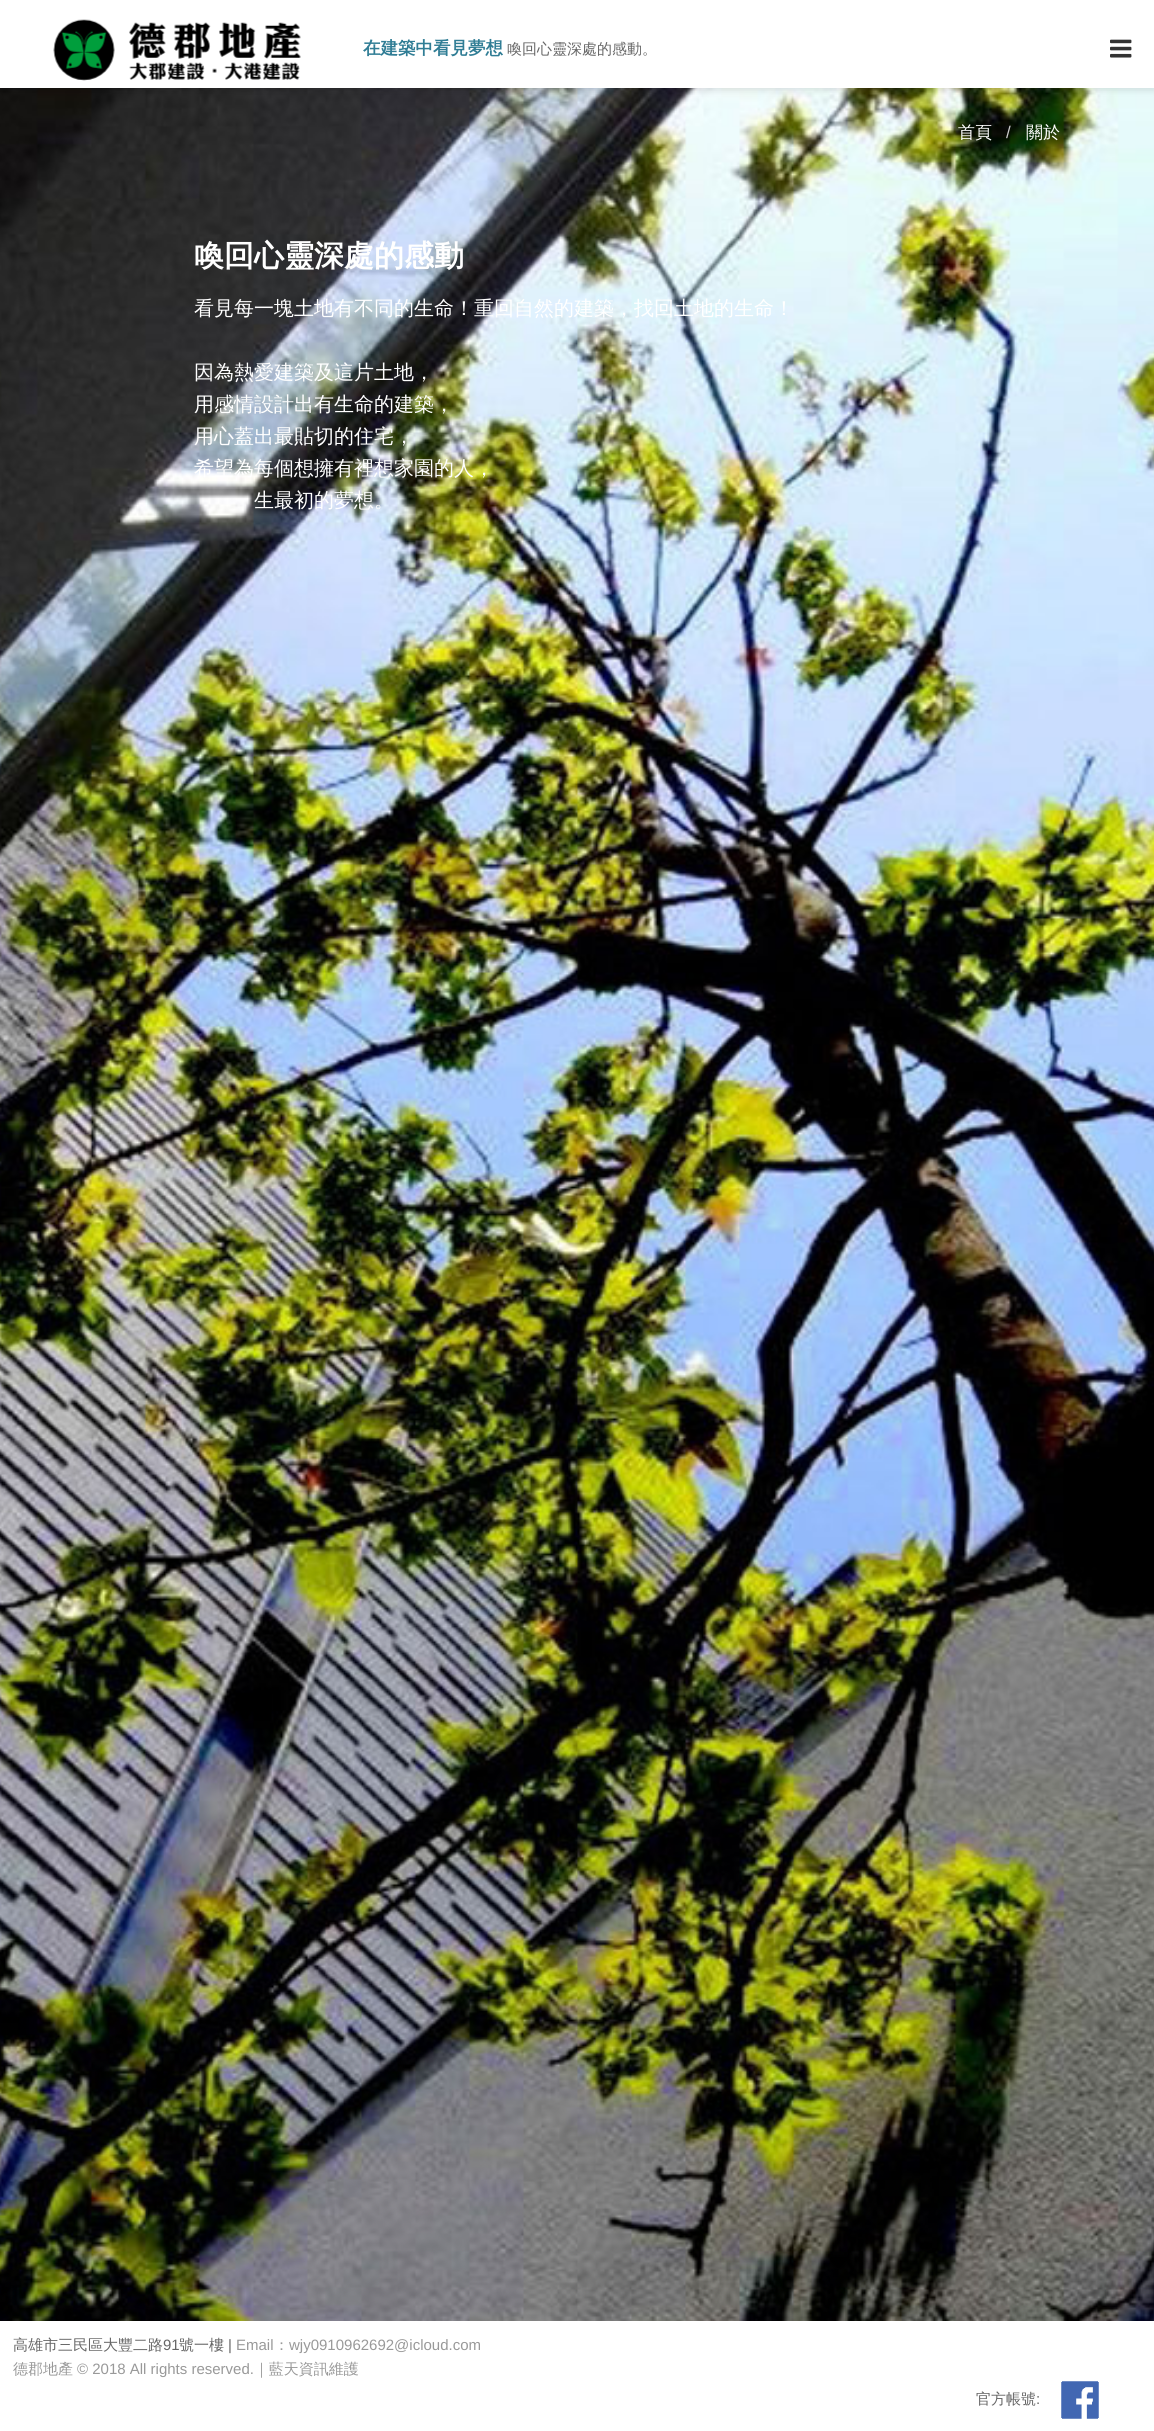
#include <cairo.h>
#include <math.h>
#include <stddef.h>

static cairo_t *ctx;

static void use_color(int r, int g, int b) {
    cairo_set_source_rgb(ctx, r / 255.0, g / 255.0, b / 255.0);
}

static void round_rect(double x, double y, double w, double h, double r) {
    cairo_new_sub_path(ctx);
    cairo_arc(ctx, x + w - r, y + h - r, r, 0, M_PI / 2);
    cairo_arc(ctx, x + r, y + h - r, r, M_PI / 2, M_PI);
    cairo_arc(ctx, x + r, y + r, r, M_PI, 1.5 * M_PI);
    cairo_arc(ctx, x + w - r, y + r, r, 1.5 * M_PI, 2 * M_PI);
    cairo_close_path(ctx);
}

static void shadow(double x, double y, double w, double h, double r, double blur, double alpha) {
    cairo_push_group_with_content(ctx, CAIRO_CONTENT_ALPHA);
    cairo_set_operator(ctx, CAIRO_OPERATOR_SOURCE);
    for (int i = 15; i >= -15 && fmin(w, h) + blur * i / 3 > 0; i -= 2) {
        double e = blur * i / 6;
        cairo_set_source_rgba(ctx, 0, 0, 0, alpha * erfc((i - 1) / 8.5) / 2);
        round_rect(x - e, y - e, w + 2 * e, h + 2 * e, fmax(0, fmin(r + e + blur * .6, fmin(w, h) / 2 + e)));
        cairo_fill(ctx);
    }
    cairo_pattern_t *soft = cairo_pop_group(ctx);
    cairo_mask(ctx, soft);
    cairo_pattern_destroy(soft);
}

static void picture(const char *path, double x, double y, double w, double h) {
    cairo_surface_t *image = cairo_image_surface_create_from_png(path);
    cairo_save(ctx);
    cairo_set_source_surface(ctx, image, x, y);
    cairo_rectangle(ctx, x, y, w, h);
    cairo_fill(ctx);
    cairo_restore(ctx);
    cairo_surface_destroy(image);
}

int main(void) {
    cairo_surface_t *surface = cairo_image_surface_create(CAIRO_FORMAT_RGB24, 1154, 2431);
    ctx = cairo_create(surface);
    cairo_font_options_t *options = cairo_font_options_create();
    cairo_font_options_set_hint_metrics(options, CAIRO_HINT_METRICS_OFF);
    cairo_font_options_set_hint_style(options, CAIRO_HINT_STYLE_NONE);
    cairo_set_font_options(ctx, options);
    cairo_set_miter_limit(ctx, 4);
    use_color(255, 255, 255);
    cairo_paint(ctx);
    picture("img3.png", 0, 88, 1154, 2233);
    use_color(0, 0, 0);
    shadow(0, 4, 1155, 87, 0, 3, 0.1);
    use_color(255, 255, 255);
    cairo_rectangle(ctx, 0, 0, 1154, 88);
    cairo_fill(ctx);
    picture("img1.png", 53, 19, 248, 62);
    cairo_select_font_face(ctx, "WenQuanYi Zen Hei", CAIRO_FONT_SLANT_NORMAL, CAIRO_FONT_WEIGHT_BOLD);
    cairo_set_font_size(ctx, 17.5);
    use_color(48, 125, 149);
    cairo_move_to(ctx, 363, 54);
    cairo_show_text(ctx, "在建築中看見夢想");
    cairo_select_font_face(ctx, "WenQuanYi Zen Hei Medium", CAIRO_FONT_SLANT_NORMAL, CAIRO_FONT_WEIGHT_NORMAL);
    cairo_set_font_size(ctx, 15);
    use_color(102, 102, 102);
    cairo_move_to(ctx, 507, 54);
    cairo_show_text(ctx, "喚回心靈深處的感動。");
    picture("img2.png", 1110, 39, 22, 19);
    cairo_set_font_size(ctx, 17);
    use_color(255, 255, 255);
    cairo_move_to(ctx, 958, 138);
    cairo_show_text(ctx, "首頁");
    cairo_select_font_face(ctx, "Liberation Sans", CAIRO_FONT_SLANT_NORMAL, CAIRO_FONT_WEIGHT_NORMAL);
    use_color(204, 204, 204);
    cairo_move_to(ctx, 1006, 138);
    cairo_show_text(ctx, "/");
    cairo_select_font_face(ctx, "WenQuanYi Zen Hei Medium", CAIRO_FONT_SLANT_NORMAL, CAIRO_FONT_WEIGHT_NORMAL);
    use_color(255, 255, 255);
    cairo_move_to(ctx, 1026, 138);
    cairo_show_text(ctx, "關於");
    cairo_select_font_face(ctx, "WenQuanYi Zen Hei", CAIRO_FONT_SLANT_NORMAL, CAIRO_FONT_WEIGHT_BOLD);
    cairo_set_font_size(ctx, 30);
    cairo_move_to(ctx, 194, 266);
    cairo_show_text(ctx, "喚回心靈深處的感動");
    cairo_select_font_face(ctx, "WenQuanYi Zen Hei Medium", CAIRO_FONT_SLANT_NORMAL, CAIRO_FONT_WEIGHT_NORMAL);
    cairo_set_font_size(ctx, 20);
    cairo_move_to(ctx, 194, 315);
    cairo_show_text(ctx, "看見每一塊土地有不同的生命！重回自然的建築，找回土地的生命！");
    cairo_move_to(ctx, 194, 379);
    cairo_show_text(ctx, "因為熱愛建築及這片土地，");
    cairo_move_to(ctx, 194, 411);
    cairo_show_text(ctx, "用感情設計出有生命的建築，");
    cairo_move_to(ctx, 194, 443);
    cairo_show_text(ctx, "用心蓋出最貼切的住宅，");
    cairo_move_to(ctx, 194, 475);
    cairo_show_text(ctx, "希望為每個想擁有裡想家園的人，");
    cairo_move_to(ctx, 254, 507);
    cairo_show_text(ctx, "生最初的夢想。");
    cairo_set_font_size(ctx, 15);
    use_color(102, 102, 102);
    cairo_move_to(ctx, 13, 2350);
    cairo_show_text(ctx, "高雄市三民區大豐二路");
    cairo_select_font_face(ctx, "Liberation Sans", CAIRO_FONT_SLANT_NORMAL, CAIRO_FONT_WEIGHT_NORMAL);
    cairo_move_to(ctx, 163, 2350);
    cairo_show_text(ctx, "91");
    cairo_select_font_face(ctx, "WenQuanYi Zen Hei Medium", CAIRO_FONT_SLANT_NORMAL, CAIRO_FONT_WEIGHT_NORMAL);
    cairo_move_to(ctx, 179, 2350);
    cairo_show_text(ctx, "號一樓");
    cairo_select_font_face(ctx, "Liberation Sans", CAIRO_FONT_SLANT_NORMAL, CAIRO_FONT_WEIGHT_NORMAL);
    cairo_move_to(ctx, 228, 2350);
    cairo_show_text(ctx, "|");
    use_color(153, 153, 153);
    cairo_move_to(ctx, 236, 2350);
    cairo_show_text(ctx, "Email");
    cairo_select_font_face(ctx, "WenQuanYi Zen Hei Medium", CAIRO_FONT_SLANT_NORMAL, CAIRO_FONT_WEIGHT_NORMAL);
    cairo_move_to(ctx, 274, 2350);
    cairo_show_text(ctx, "：");
    cairo_select_font_face(ctx, "Liberation Sans", CAIRO_FONT_SLANT_NORMAL, CAIRO_FONT_WEIGHT_NORMAL);
    cairo_move_to(ctx, 289, 2350);
    cairo_show_text(ctx, "wjy0910962692@icloud.com");
    cairo_select_font_face(ctx, "WenQuanYi Zen Hei Medium", CAIRO_FONT_SLANT_NORMAL, CAIRO_FONT_WEIGHT_NORMAL);
    cairo_move_to(ctx, 13, 2374);
    cairo_show_text(ctx, "德郡地產");
    cairo_select_font_face(ctx, "Liberation Sans", CAIRO_FONT_SLANT_NORMAL, CAIRO_FONT_WEIGHT_NORMAL);
    cairo_move_to(ctx, 77, 2374);
    cairo_show_text(ctx, "© 2018 All rights reserved.");
    cairo_select_font_face(ctx, "WenQuanYi Zen Hei Medium", CAIRO_FONT_SLANT_NORMAL, CAIRO_FONT_WEIGHT_NORMAL);
    cairo_move_to(ctx, 254, 2374);
    cairo_show_text(ctx, "｜藍天資訊維護");
    use_color(102, 102, 102);
    cairo_move_to(ctx, 976, 2404);
    cairo_show_text(ctx, "官方帳號");
    cairo_select_font_face(ctx, "Liberation Sans", CAIRO_FONT_SLANT_NORMAL, CAIRO_FONT_WEIGHT_NORMAL);
    cairo_move_to(ctx, 1036, 2404);
    cairo_show_text(ctx, ":");
    picture("img4.png", 1061, 2381, 38, 38);
    cairo_surface_write_to_png(surface, "result.png");
    cairo_font_options_destroy(options);
    cairo_destroy(ctx);
    cairo_surface_destroy(surface);
    return 0;
}
